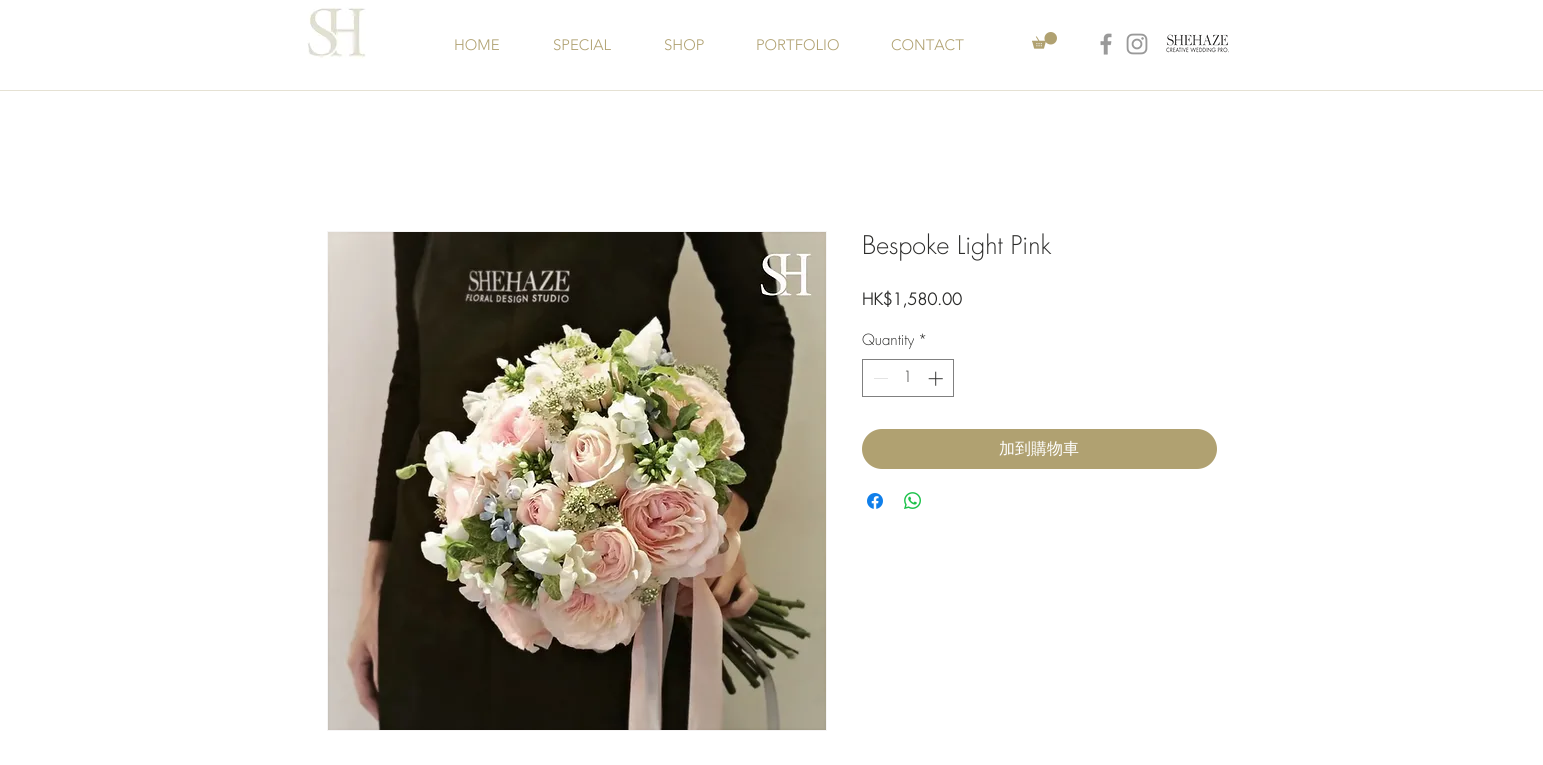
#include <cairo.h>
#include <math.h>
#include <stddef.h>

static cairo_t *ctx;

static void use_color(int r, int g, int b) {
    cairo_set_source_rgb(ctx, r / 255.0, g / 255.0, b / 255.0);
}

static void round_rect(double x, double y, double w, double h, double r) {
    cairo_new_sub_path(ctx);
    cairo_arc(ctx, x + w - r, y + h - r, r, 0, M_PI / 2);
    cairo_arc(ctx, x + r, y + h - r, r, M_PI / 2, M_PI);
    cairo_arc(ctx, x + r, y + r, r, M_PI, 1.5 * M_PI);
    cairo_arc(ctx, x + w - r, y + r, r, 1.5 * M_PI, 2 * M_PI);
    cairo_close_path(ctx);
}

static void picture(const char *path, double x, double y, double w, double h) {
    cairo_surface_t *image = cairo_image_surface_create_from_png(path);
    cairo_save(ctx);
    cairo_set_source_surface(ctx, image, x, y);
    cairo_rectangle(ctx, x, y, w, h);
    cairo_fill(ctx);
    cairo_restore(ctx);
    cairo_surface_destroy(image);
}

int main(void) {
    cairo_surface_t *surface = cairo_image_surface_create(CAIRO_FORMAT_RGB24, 1543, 765);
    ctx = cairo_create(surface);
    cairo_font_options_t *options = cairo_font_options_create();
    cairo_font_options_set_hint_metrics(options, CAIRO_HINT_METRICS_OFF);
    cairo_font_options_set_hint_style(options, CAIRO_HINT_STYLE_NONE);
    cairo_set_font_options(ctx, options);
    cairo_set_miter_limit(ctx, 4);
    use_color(255, 255, 255);
    cairo_paint(ctx);
    picture("img1.png", 307, 7, 59, 52);
    cairo_select_font_face(ctx, "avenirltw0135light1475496 Light", CAIRO_FONT_SLANT_NORMAL, CAIRO_FONT_WEIGHT_NORMAL);
    cairo_set_font_size(ctx, 15);
    use_color(176, 161, 113);
    cairo_move_to(ctx, 454, 50);
    cairo_show_text(ctx, "HOME");
    cairo_move_to(ctx, 553, 50);
    cairo_show_text(ctx, "SPECIAL");
    cairo_move_to(ctx, 664, 50);
    cairo_show_text(ctx, "SHOP");
    cairo_move_to(ctx, 756, 50);
    cairo_show_text(ctx, "PORTFOLIO");
    cairo_move_to(ctx, 891, 50);
    cairo_show_text(ctx, "CONTACT");
    picture("img2.png", 1032, 32, 25, 17);
    picture("img3.png", 1100, 33, 12, 22);
    picture("img4.png", 1126, 33, 22, 22);
    picture("img5.png", 1166, 34, 63, 19);
    use_color(229, 225, 211);
    cairo_rectangle(ctx, 0, 90, 1543, 1);
    cairo_fill(ctx);
    cairo_rectangle(ctx, 327.5, 231.5, 499, 499);
    use_color(246, 245, 245);
    cairo_set_line_width(ctx, 1);
    cairo_stroke(ctx);
    picture("img6.png", 328, 232, 498, 498);
    cairo_select_font_face(ctx, "futura Light", CAIRO_FONT_SLANT_NORMAL, CAIRO_FONT_WEIGHT_NORMAL);
    cairo_set_font_size(ctx, 25);
    use_color(44, 44, 43);
    cairo_move_to(ctx, 862, 254);
    cairo_show_text(ctx, "Bespoke Light Pink");
    cairo_select_font_face(ctx, "futura", CAIRO_FONT_SLANT_NORMAL, CAIRO_FONT_WEIGHT_BOLD);
    cairo_set_font_size(ctx, 16);
    cairo_move_to(ctx, 862, 305);
    cairo_show_text(ctx, "HK$1,580.00");
    cairo_select_font_face(ctx, "futura Light", CAIRO_FONT_SLANT_NORMAL, CAIRO_FONT_WEIGHT_NORMAL);
    cairo_set_font_size(ctx, 15);
    cairo_move_to(ctx, 862, 345);
    cairo_show_text(ctx, "Quantity");
    cairo_move_to(ctx, 918, 345);
    cairo_show_text(ctx, "*");
    cairo_rectangle(ctx, 862.5, 359.5, 91, 37);
    use_color(128, 128, 128);
    cairo_stroke(ctx);
    use_color(227, 227, 227);
    cairo_rectangle(ctx, 874, 378, 14, 1);
    cairo_fill(ctx);
    use_color(44, 44, 43);
    cairo_move_to(ctx, 903, 382);
    cairo_show_text(ctx, "1");
    picture("img7.png", 928, 371, 15, 15);
    use_color(176, 161, 113);
    round_rect(862, 429, 355, 40, 20);
    cairo_fill(ctx);
    cairo_select_font_face(ctx, "WenQuanYi Zen Hei Medium", CAIRO_FONT_SLANT_NORMAL, CAIRO_FONT_WEIGHT_NORMAL);
    cairo_set_font_size(ctx, 16);
    use_color(255, 255, 255);
    cairo_move_to(ctx, 999, 454);
    cairo_show_text(ctx, "加到購物車");
    picture("img8.png", 867, 493, 16, 16);
    picture("img9.png", 904, 492, 17, 17);
    cairo_surface_write_to_png(surface, "result.png");
    cairo_font_options_destroy(options);
    cairo_destroy(ctx);
    cairo_surface_destroy(surface);
    return 0;
}
